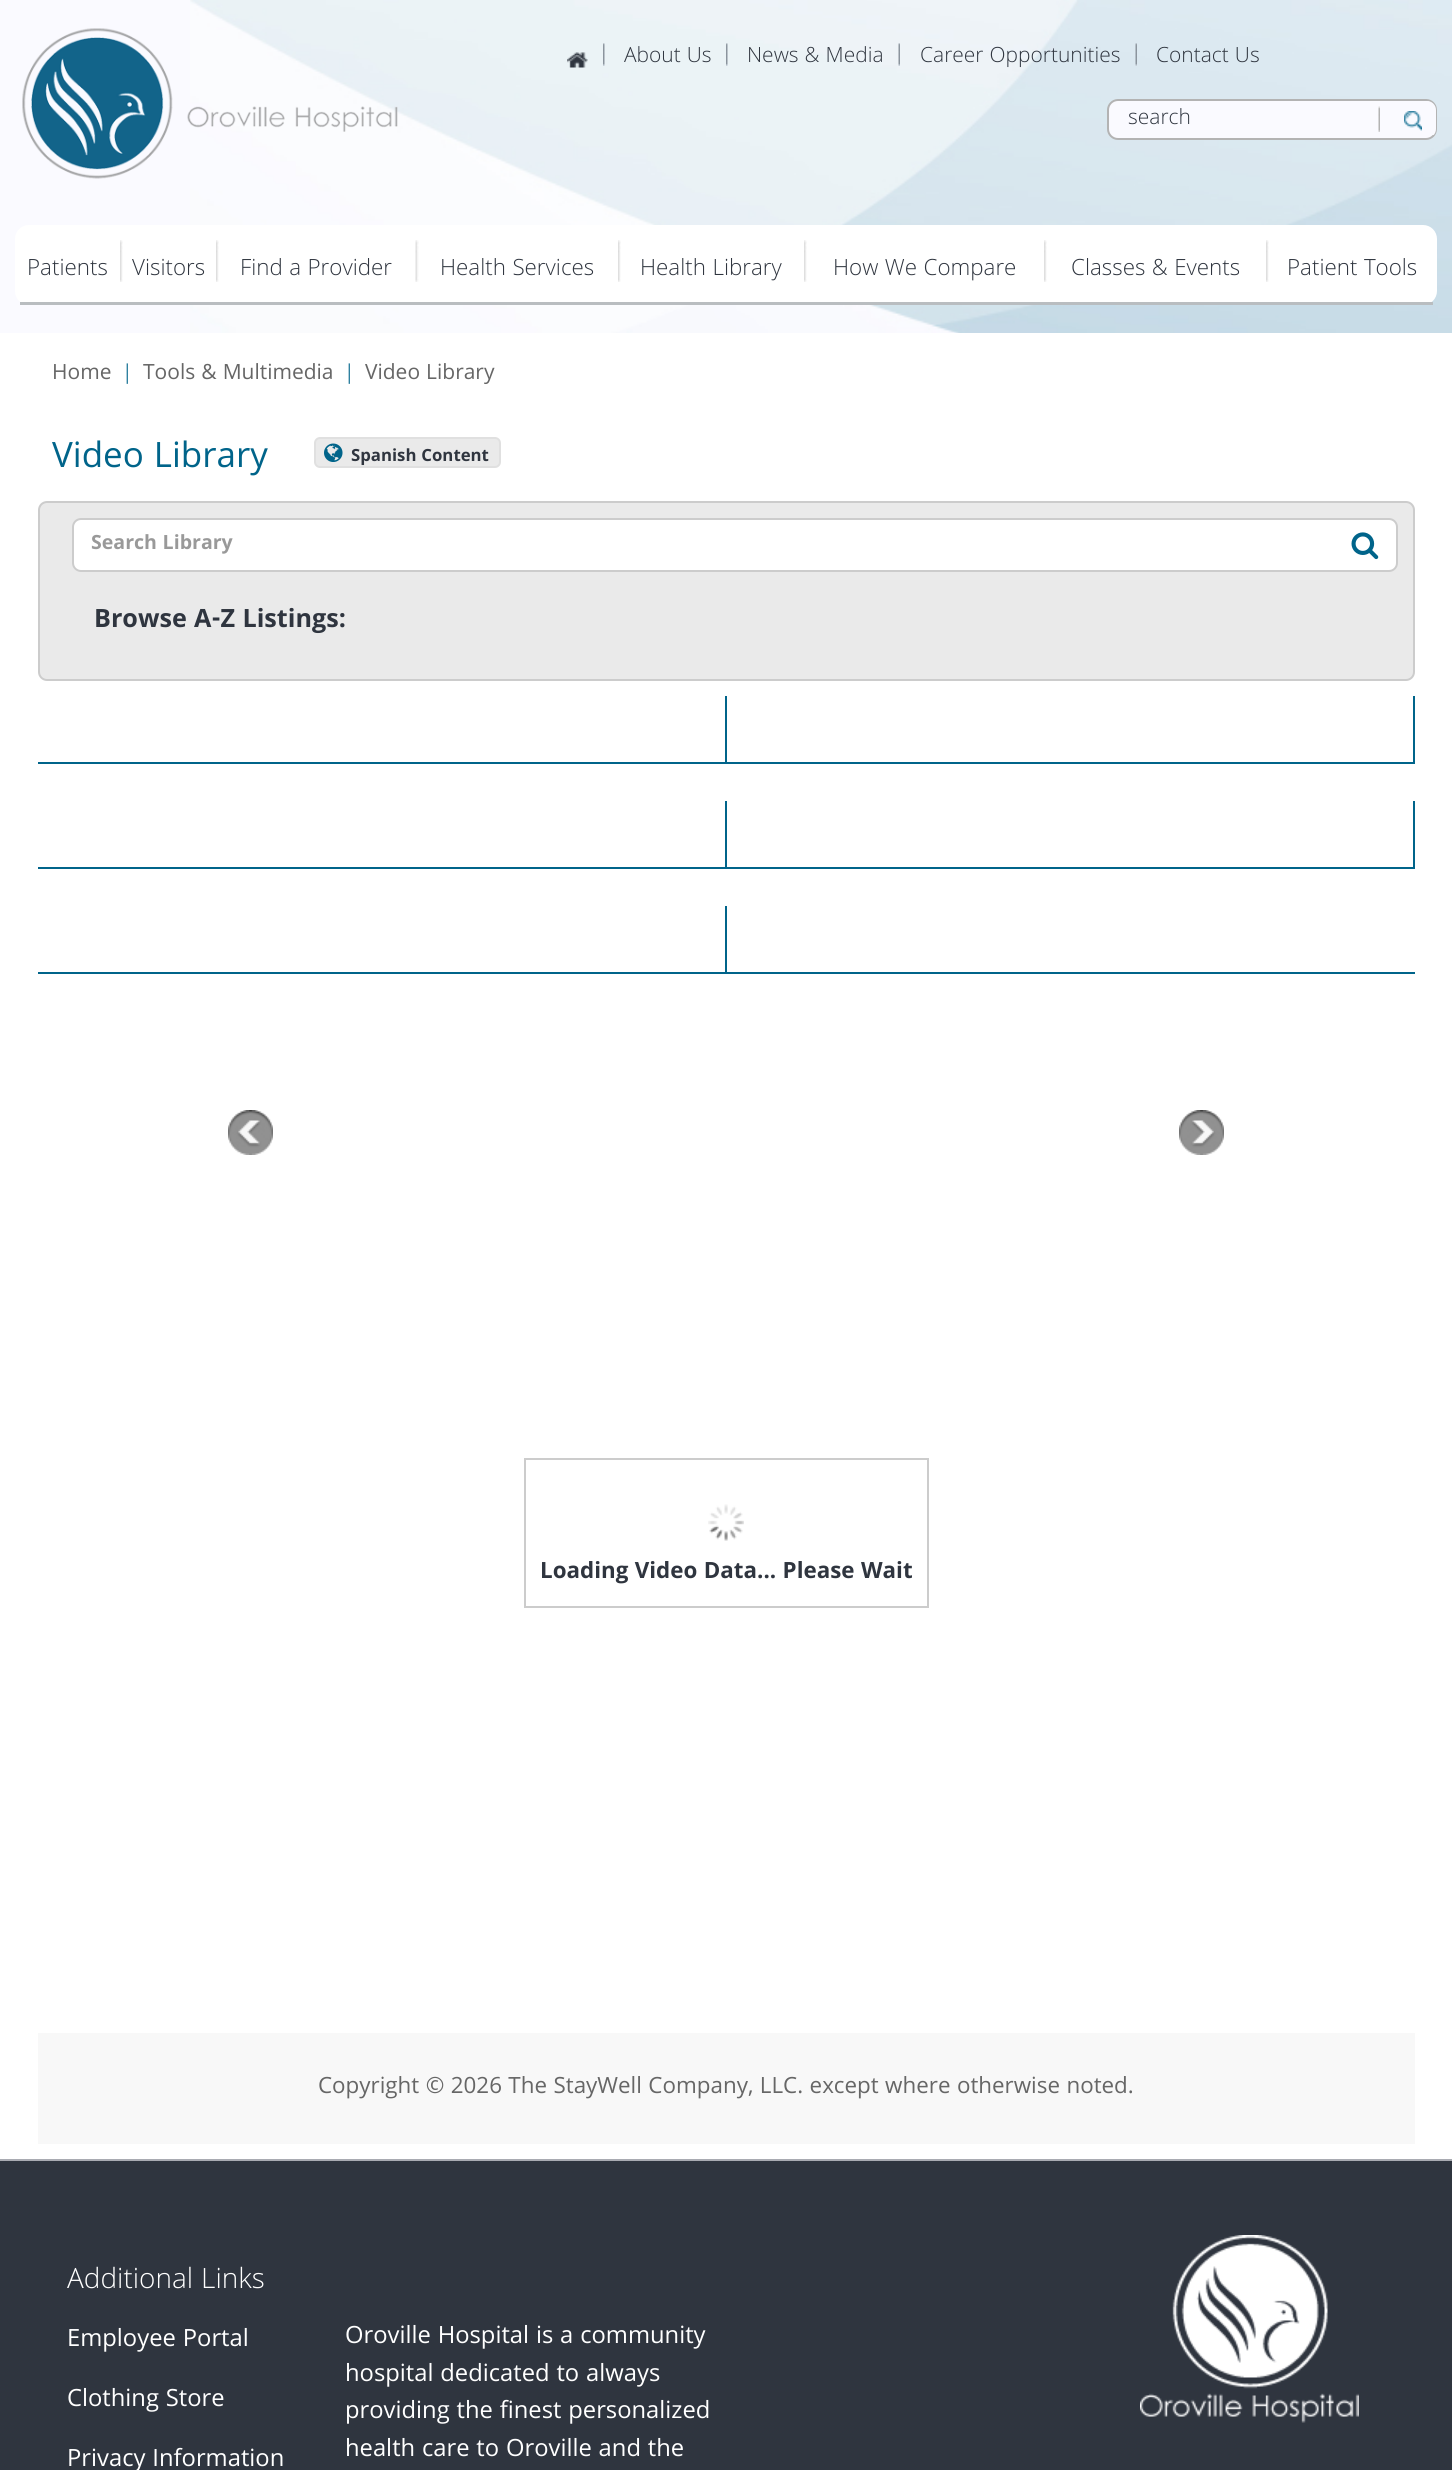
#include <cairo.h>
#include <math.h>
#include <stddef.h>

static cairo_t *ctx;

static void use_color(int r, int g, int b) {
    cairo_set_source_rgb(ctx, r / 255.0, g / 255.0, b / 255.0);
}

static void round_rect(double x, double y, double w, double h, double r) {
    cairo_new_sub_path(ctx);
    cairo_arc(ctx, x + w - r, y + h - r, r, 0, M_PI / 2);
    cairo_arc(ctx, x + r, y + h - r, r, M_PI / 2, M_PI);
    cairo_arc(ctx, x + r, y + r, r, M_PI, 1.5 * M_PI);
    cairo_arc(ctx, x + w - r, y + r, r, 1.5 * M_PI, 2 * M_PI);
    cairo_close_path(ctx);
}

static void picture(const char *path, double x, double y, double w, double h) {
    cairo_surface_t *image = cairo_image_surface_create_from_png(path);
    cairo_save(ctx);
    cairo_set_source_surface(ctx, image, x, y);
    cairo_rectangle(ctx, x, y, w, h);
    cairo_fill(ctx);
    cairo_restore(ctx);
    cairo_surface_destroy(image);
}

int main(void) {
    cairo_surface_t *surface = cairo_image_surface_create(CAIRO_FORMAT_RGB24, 1452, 2470);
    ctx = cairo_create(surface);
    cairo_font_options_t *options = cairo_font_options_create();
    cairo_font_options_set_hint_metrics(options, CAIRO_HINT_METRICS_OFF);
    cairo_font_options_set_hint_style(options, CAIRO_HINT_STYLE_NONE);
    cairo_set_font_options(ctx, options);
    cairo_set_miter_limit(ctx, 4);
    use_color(250, 250, 255);
    cairo_paint(ctx);
    picture("img1.png", 190, 0, 1262, 333);
    picture("img2.png", 22, 28, 151, 151);
    picture("img3.png", 187, 106, 211, 26);
    picture("img4.png", 567, 52, 21, 16);
    picture("img5.png", 603, 43, 2, 23);
    cairo_select_font_face(ctx, "Khula Light", CAIRO_FONT_SLANT_NORMAL, CAIRO_FONT_WEIGHT_NORMAL);
    cairo_set_font_size(ctx, 22.5);
    use_color(47, 53, 63);
    cairo_move_to(ctx, 624, 62);
    cairo_show_text(ctx, "About Us");
    picture("img5.png", 726, 43, 2, 23);
    cairo_move_to(ctx, 747, 62);
    cairo_show_text(ctx, "News & Media");
    picture("img6.png", 898, 43, 2, 23);
    cairo_move_to(ctx, 920, 62);
    cairo_show_text(ctx, "Career Opportunities");
    picture("img7.png", 1135, 43, 2, 23);
    cairo_move_to(ctx, 1156, 62);
    cairo_show_text(ctx, "Contact Us");
    use_color(250, 250, 255);
    round_rect(1108, 100, 328, 39, 10);
    cairo_fill_preserve(ctx);
    use_color(179, 179, 179);
    cairo_stroke(ctx);
    picture("img8.png", 1378, 106, 2, 26);
    use_color(47, 53, 63);
    cairo_move_to(ctx, 1128, 124);
    cairo_show_text(ctx, "search");
    cairo_save(ctx);
    round_rect(1109, 101, 327, 37, 9);
    cairo_clip(ctx);
    use_color(250, 250, 255);
    cairo_new_path(ctx);
    cairo_move_to(ctx, 1398, 101);
    cairo_line_to(ctx, 1427, 101);
    cairo_curve_to(ctx, 1432, 101, 1436, 105, 1436, 110);
    cairo_line_to(ctx, 1436, 135);
    cairo_line_to(ctx, 1398, 135);
    cairo_close_path(ctx);
    cairo_fill(ctx);
    cairo_restore(ctx);
    picture("img9.png", 1404, 111, 18, 20);
    use_color(255, 255, 255);
    round_rect(15, 225, 1422, 80, 14);
    cairo_fill(ctx);
    use_color(185, 189, 192);
    cairo_rectangle(ctx, 20, 302, 1413, 3);
    cairo_fill(ctx);
    cairo_set_font_size(ctx, 24);
    use_color(47, 53, 63);
    cairo_move_to(ctx, 27, 275);
    cairo_show_text(ctx, "Patients");
    picture("img10.png", 120, 240, 3, 42);
    cairo_move_to(ctx, 132, 275);
    cairo_show_text(ctx, "Visitors");
    picture("img10.png", 216, 240, 3, 42);
    cairo_move_to(ctx, 240, 275);
    cairo_show_text(ctx, "Find a Provider");
    picture("img11.png", 415, 240, 4, 42);
    cairo_move_to(ctx, 440, 275);
    cairo_show_text(ctx, "Health Services");
    picture("img10.png", 618, 240, 3, 42);
    cairo_move_to(ctx, 640, 275);
    cairo_show_text(ctx, "Health Library");
    picture("img10.png", 804, 240, 3, 42);
    cairo_move_to(ctx, 833, 275);
    cairo_show_text(ctx, "How We Compare");
    picture("img12.png", 1044, 240, 3, 42);
    cairo_move_to(ctx, 1071, 275);
    cairo_show_text(ctx, "Classes & Events");
    picture("img12.png", 1266, 240, 3, 42);
    cairo_move_to(ctx, 1287, 275);
    cairo_show_text(ctx, "Patient Tools");
    use_color(255, 255, 255);
    cairo_rectangle(ctx, 0, 333, 1452, 1826);
    cairo_fill(ctx);
    cairo_select_font_face(ctx, "Khula", CAIRO_FONT_SLANT_NORMAL, CAIRO_FONT_WEIGHT_NORMAL);
    cairo_set_font_size(ctx, 22.5);
    use_color(102, 102, 102);
    cairo_move_to(ctx, 52, 379);
    cairo_show_text(ctx, "Home");
    cairo_select_font_face(ctx, "Liberation Serif", CAIRO_FONT_SLANT_NORMAL, CAIRO_FONT_WEIGHT_NORMAL);
    use_color(0, 100, 138);
    cairo_move_to(ctx, 125, 379);
    cairo_show_text(ctx, "|");
    cairo_select_font_face(ctx, "Khula", CAIRO_FONT_SLANT_NORMAL, CAIRO_FONT_WEIGHT_NORMAL);
    use_color(102, 102, 102);
    cairo_move_to(ctx, 143, 379);
    cairo_show_text(ctx, "Tools & Multimedia");
    cairo_select_font_face(ctx, "Liberation Serif", CAIRO_FONT_SLANT_NORMAL, CAIRO_FONT_WEIGHT_NORMAL);
    use_color(0, 100, 138);
    cairo_move_to(ctx, 347, 379);
    cairo_show_text(ctx, "|");
    cairo_select_font_face(ctx, "Khula", CAIRO_FONT_SLANT_NORMAL, CAIRO_FONT_WEIGHT_NORMAL);
    use_color(102, 102, 102);
    cairo_move_to(ctx, 365, 379);
    cairo_show_text(ctx, "Video Library");
    cairo_set_font_size(ctx, 37.5);
    use_color(0, 100, 138);
    cairo_move_to(ctx, 52, 467);
    cairo_show_text(ctx, "Video Library");
    use_color(234, 234, 234);
    round_rect(315, 438, 185, 29, 5);
    cairo_fill_preserve(ctx);
    use_color(224, 224, 224);
    cairo_stroke(ctx);
    picture("img13.png", 324, 443, 19, 19);
    cairo_select_font_face(ctx, "Khula", CAIRO_FONT_SLANT_NORMAL, CAIRO_FONT_WEIGHT_BOLD);
    cairo_set_font_size(ctx, 18);
    use_color(47, 53, 63);
    cairo_move_to(ctx, 351, 461);
    cairo_show_text(ctx, "Spanish Content");
    use_color(234, 234, 234);
    round_rect(39, 502, 1375, 178, 8);
    cairo_fill_preserve(ctx);
    use_color(204, 204, 204);
    cairo_stroke(ctx);
    use_color(255, 255, 255);
    round_rect(73, 519, 1324, 52, 8);
    cairo_fill_preserve(ctx);
    use_color(204, 204, 204);
    cairo_stroke(ctx);
    cairo_set_font_size(ctx, 21);
    use_color(153, 153, 153);
    cairo_move_to(ctx, 91, 549);
    cairo_show_text(ctx, "Search Library");
    picture("img14.png", 1351, 532, 28, 28);
    cairo_set_font_size(ctx, 27);
    use_color(47, 53, 63);
    cairo_move_to(ctx, 94, 627);
    cairo_show_text(ctx, "Browse A-Z Listings:");
    use_color(0, 100, 138);
    cairo_rectangle(ctx, 725, 696, 2, 68);
    cairo_fill(ctx);
    cairo_rectangle(ctx, 38, 762, 688, 2);
    cairo_fill(ctx);
    cairo_rectangle(ctx, 1413, 696, 2, 68);
    cairo_fill(ctx);
    cairo_rectangle(ctx, 726, 762, 689, 2);
    cairo_fill(ctx);
    cairo_rectangle(ctx, 725, 801, 2, 68);
    cairo_fill(ctx);
    cairo_rectangle(ctx, 38, 867, 688, 2);
    cairo_fill(ctx);
    cairo_rectangle(ctx, 1413, 801, 2, 68);
    cairo_fill(ctx);
    cairo_rectangle(ctx, 726, 867, 689, 2);
    cairo_fill(ctx);
    cairo_rectangle(ctx, 725, 906, 2, 68);
    cairo_fill(ctx);
    cairo_rectangle(ctx, 38, 972, 1377, 2);
    cairo_fill(ctx);
    picture("img15.png", 228, 1110, 45, 45);
    picture("img16.png", 1179, 1110, 45, 45);
    cairo_rectangle(ctx, 525, 1459, 403, 148);
    use_color(204, 204, 204);
    cairo_stroke(ctx);
    picture("img17.png", 708, 1504, 36, 37);
    cairo_set_font_size(ctx, 24);
    use_color(47, 53, 63);
    cairo_move_to(ctx, 540, 1578);
    cairo_show_text(ctx, "Loading Video Data... Please Wait");
    use_color(248, 248, 248);
    cairo_rectangle(ctx, 38, 2033, 1377, 111);
    cairo_fill(ctx);
    cairo_select_font_face(ctx, "Khula", CAIRO_FONT_SLANT_NORMAL, CAIRO_FONT_WEIGHT_NORMAL);
    use_color(102, 102, 102);
    cairo_move_to(ctx, 318, 2093);
    cairo_show_text(ctx, "Copyright © 2026 The StayWell Company, LLC. except where otherwise noted.");
    use_color(47, 53, 63);
    cairo_rectangle(ctx, 0, 2161, 1452, 309);
    cairo_fill(ctx);
    use_color(169, 171, 178);
    cairo_rectangle(ctx, 0, 2159, 1452, 2);
    cairo_fill(ctx);
    cairo_select_font_face(ctx, "Khula Light", CAIRO_FONT_SLANT_NORMAL, CAIRO_FONT_WEIGHT_NORMAL);
    cairo_set_font_size(ctx, 30);
    use_color(255, 255, 255);
    cairo_move_to(ctx, 67, 2288);
    cairo_show_text(ctx, "Additional Links");
    cairo_select_font_face(ctx, "Khula", CAIRO_FONT_SLANT_NORMAL, CAIRO_FONT_WEIGHT_NORMAL);
    cairo_set_font_size(ctx, 25.5);
    cairo_move_to(ctx, 67, 2346);
    cairo_show_text(ctx, "Employee Portal");
    cairo_move_to(ctx, 67, 2406);
    cairo_show_text(ctx, "Clothing Store");
    cairo_move_to(ctx, 67, 2466);
    cairo_show_text(ctx, "Privacy Information");
    cairo_move_to(ctx, 345, 2343);
    cairo_show_text(ctx, "Oroville Hospital is a community");
    cairo_move_to(ctx, 345, 2381);
    cairo_show_text(ctx, "hospital dedicated to always");
    cairo_move_to(ctx, 345, 2418);
    cairo_show_text(ctx, "providing the finest personalized");
    cairo_move_to(ctx, 345, 2456);
    cairo_show_text(ctx, "health care to Oroville and the");
    picture("img18.png", 1140, 2235, 219, 188);
    cairo_surface_write_to_png(surface, "result.png");
    cairo_font_options_destroy(options);
    cairo_destroy(ctx);
    cairo_surface_destroy(surface);
    return 0;
}
